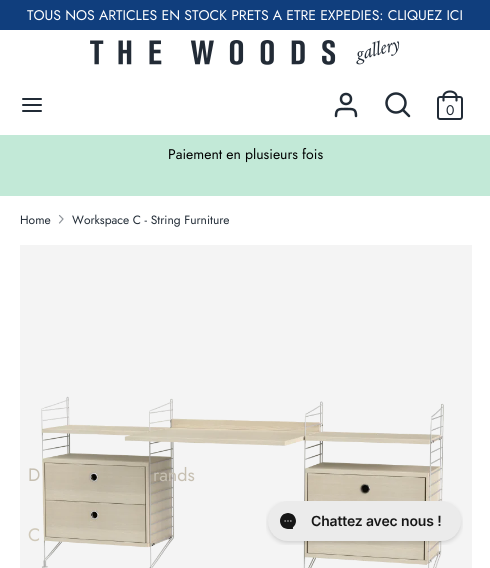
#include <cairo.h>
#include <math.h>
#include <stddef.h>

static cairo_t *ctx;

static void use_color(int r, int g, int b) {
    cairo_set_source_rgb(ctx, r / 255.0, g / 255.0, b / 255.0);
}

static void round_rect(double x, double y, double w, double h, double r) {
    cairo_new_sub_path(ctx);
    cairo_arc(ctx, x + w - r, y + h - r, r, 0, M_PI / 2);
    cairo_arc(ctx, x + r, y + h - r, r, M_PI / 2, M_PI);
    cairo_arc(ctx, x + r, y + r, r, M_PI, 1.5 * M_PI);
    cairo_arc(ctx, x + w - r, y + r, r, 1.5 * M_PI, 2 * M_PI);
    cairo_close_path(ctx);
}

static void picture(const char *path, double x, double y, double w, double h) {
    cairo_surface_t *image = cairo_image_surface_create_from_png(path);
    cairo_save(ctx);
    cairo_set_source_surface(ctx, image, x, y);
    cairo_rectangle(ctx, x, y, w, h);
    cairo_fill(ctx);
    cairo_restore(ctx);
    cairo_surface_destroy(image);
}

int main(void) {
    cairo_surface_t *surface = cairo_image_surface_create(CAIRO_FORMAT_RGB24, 490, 568);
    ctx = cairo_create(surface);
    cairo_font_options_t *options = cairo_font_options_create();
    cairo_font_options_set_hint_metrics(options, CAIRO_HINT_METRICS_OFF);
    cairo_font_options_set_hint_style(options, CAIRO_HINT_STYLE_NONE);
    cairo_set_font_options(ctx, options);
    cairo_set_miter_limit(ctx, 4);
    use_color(255, 255, 255);
    cairo_paint(ctx);
    use_color(16, 62, 125);
    cairo_rectangle(ctx, 0, 0, 490, 30);
    cairo_fill(ctx);
    cairo_select_font_face(ctx, "Jost", CAIRO_FONT_SLANT_NORMAL, CAIRO_FONT_WEIGHT_NORMAL);
    cairo_set_font_size(ctx, 14);
    use_color(255, 255, 255);
    cairo_move_to(ctx, 27, 20);
    cairo_show_text(ctx, "TOUS NOS ARTICLES EN STOCK PRETS A ETRE EXPEDIES: CLIQUEZ ICI");
    picture("img1.png", 90, 40, 310, 25);
    cairo_new_path(ctx);
    cairo_move_to(ctx, 23, 105);
    cairo_line_to(ctx, 41, 105);
    cairo_move_to(ctx, 23, 99);
    cairo_line_to(ctx, 41, 99);
    cairo_move_to(ctx, 23, 111);
    cairo_line_to(ctx, 41, 111);
    use_color(33, 43, 54);
    cairo_set_line_cap(ctx, CAIRO_LINE_CAP_ROUND);
    cairo_stroke(ctx);
    cairo_new_path(ctx);
    cairo_move_to(ctx, 356, 116);
    cairo_curve_to(ctx, 356, 108.5, 353, 109, 346, 109);
    cairo_curve_to(ctx, 339, 109, 336, 108.5, 336, 116);
    cairo_set_line_width(ctx, 2.5);
    cairo_stroke(ctx);
    cairo_arc(ctx, 346, 99, 5, 0, 2 * M_PI);
    cairo_set_line_cap(ctx, CAIRO_LINE_CAP_BUTT);
    cairo_stroke(ctx);
    cairo_arc(ctx, 396, 103, 9.5, 0, 2 * M_PI);
    cairo_stroke(ctx);
    cairo_new_path(ctx);
    cairo_move_to(ctx, 409, 116);
    cairo_line_to(ctx, 403, 110);
    cairo_set_line_cap(ctx, CAIRO_LINE_CAP_ROUND);
    cairo_stroke(ctx);
    round_rect(438, 97, 24, 22, 2);
    cairo_set_line_width(ctx, 2);
    cairo_set_line_cap(ctx, CAIRO_LINE_CAP_BUTT);
    cairo_stroke(ctx);
    cairo_new_path(ctx);
    cairo_move_to(ctx, 443.5, 100.5);
    cairo_line_to(ctx, 443.5, 96.5);
    cairo_curve_to(ctx, 443.5, 93.5, 446.5, 91.5, 450, 91.5);
    cairo_curve_to(ctx, 453.5, 91.5, 456.5, 93.5, 456.5, 96.5);
    cairo_line_to(ctx, 456.5, 100.5);
    cairo_set_line_width(ctx, 2.1);
    cairo_set_line_cap(ctx, CAIRO_LINE_CAP_ROUND);
    cairo_stroke(ctx);
    cairo_move_to(ctx, 446, 115);
    cairo_show_text(ctx, "0");
    use_color(194, 233, 215);
    cairo_rectangle(ctx, 0, 135, 490, 61);
    cairo_fill(ctx);
    use_color(0, 0, 0);
    cairo_move_to(ctx, 168, 159);
    cairo_show_text(ctx, "Paiement en plusieurs fois");
    use_color(244, 244, 244);
    cairo_rectangle(ctx, 20, 245, 452, 323);
    cairo_fill(ctx);
    cairo_set_font_size(ctx, 18);
    use_color(198, 191, 177);
    cairo_move_to(ctx, 28, 481);
    cairo_show_text(ctx, "D");
    picture("img2.png", 41, 396, 403, 172);
    cairo_move_to(ctx, 153, 481);
    cairo_show_text(ctx, "rands");
    use_color(208, 201, 185);
    cairo_move_to(ctx, 28, 541);
    cairo_show_text(ctx, "C");
    cairo_set_font_size(ctx, 12);
    use_color(33, 43, 54);
    cairo_move_to(ctx, 20, 224);
    cairo_show_text(ctx, "Home");
    cairo_new_path(ctx);
    cairo_move_to(ctx, 59.5, 223);
    cairo_line_to(ctx, 63, 219);
    cairo_line_to(ctx, 59.5, 215.5);
    use_color(144, 149, 155);
    cairo_set_line_width(ctx, 1.2);
    cairo_stroke(ctx);
    use_color(33, 43, 54);
    cairo_move_to(ctx, 72, 224);
    cairo_show_text(ctx, "Workspace C - String Furniture");
    picture("img3.png", 266, 501, 197, 44);
    cairo_surface_write_to_png(surface, "result.png");
    cairo_font_options_destroy(options);
    cairo_destroy(ctx);
    cairo_surface_destroy(surface);
    return 0;
}
